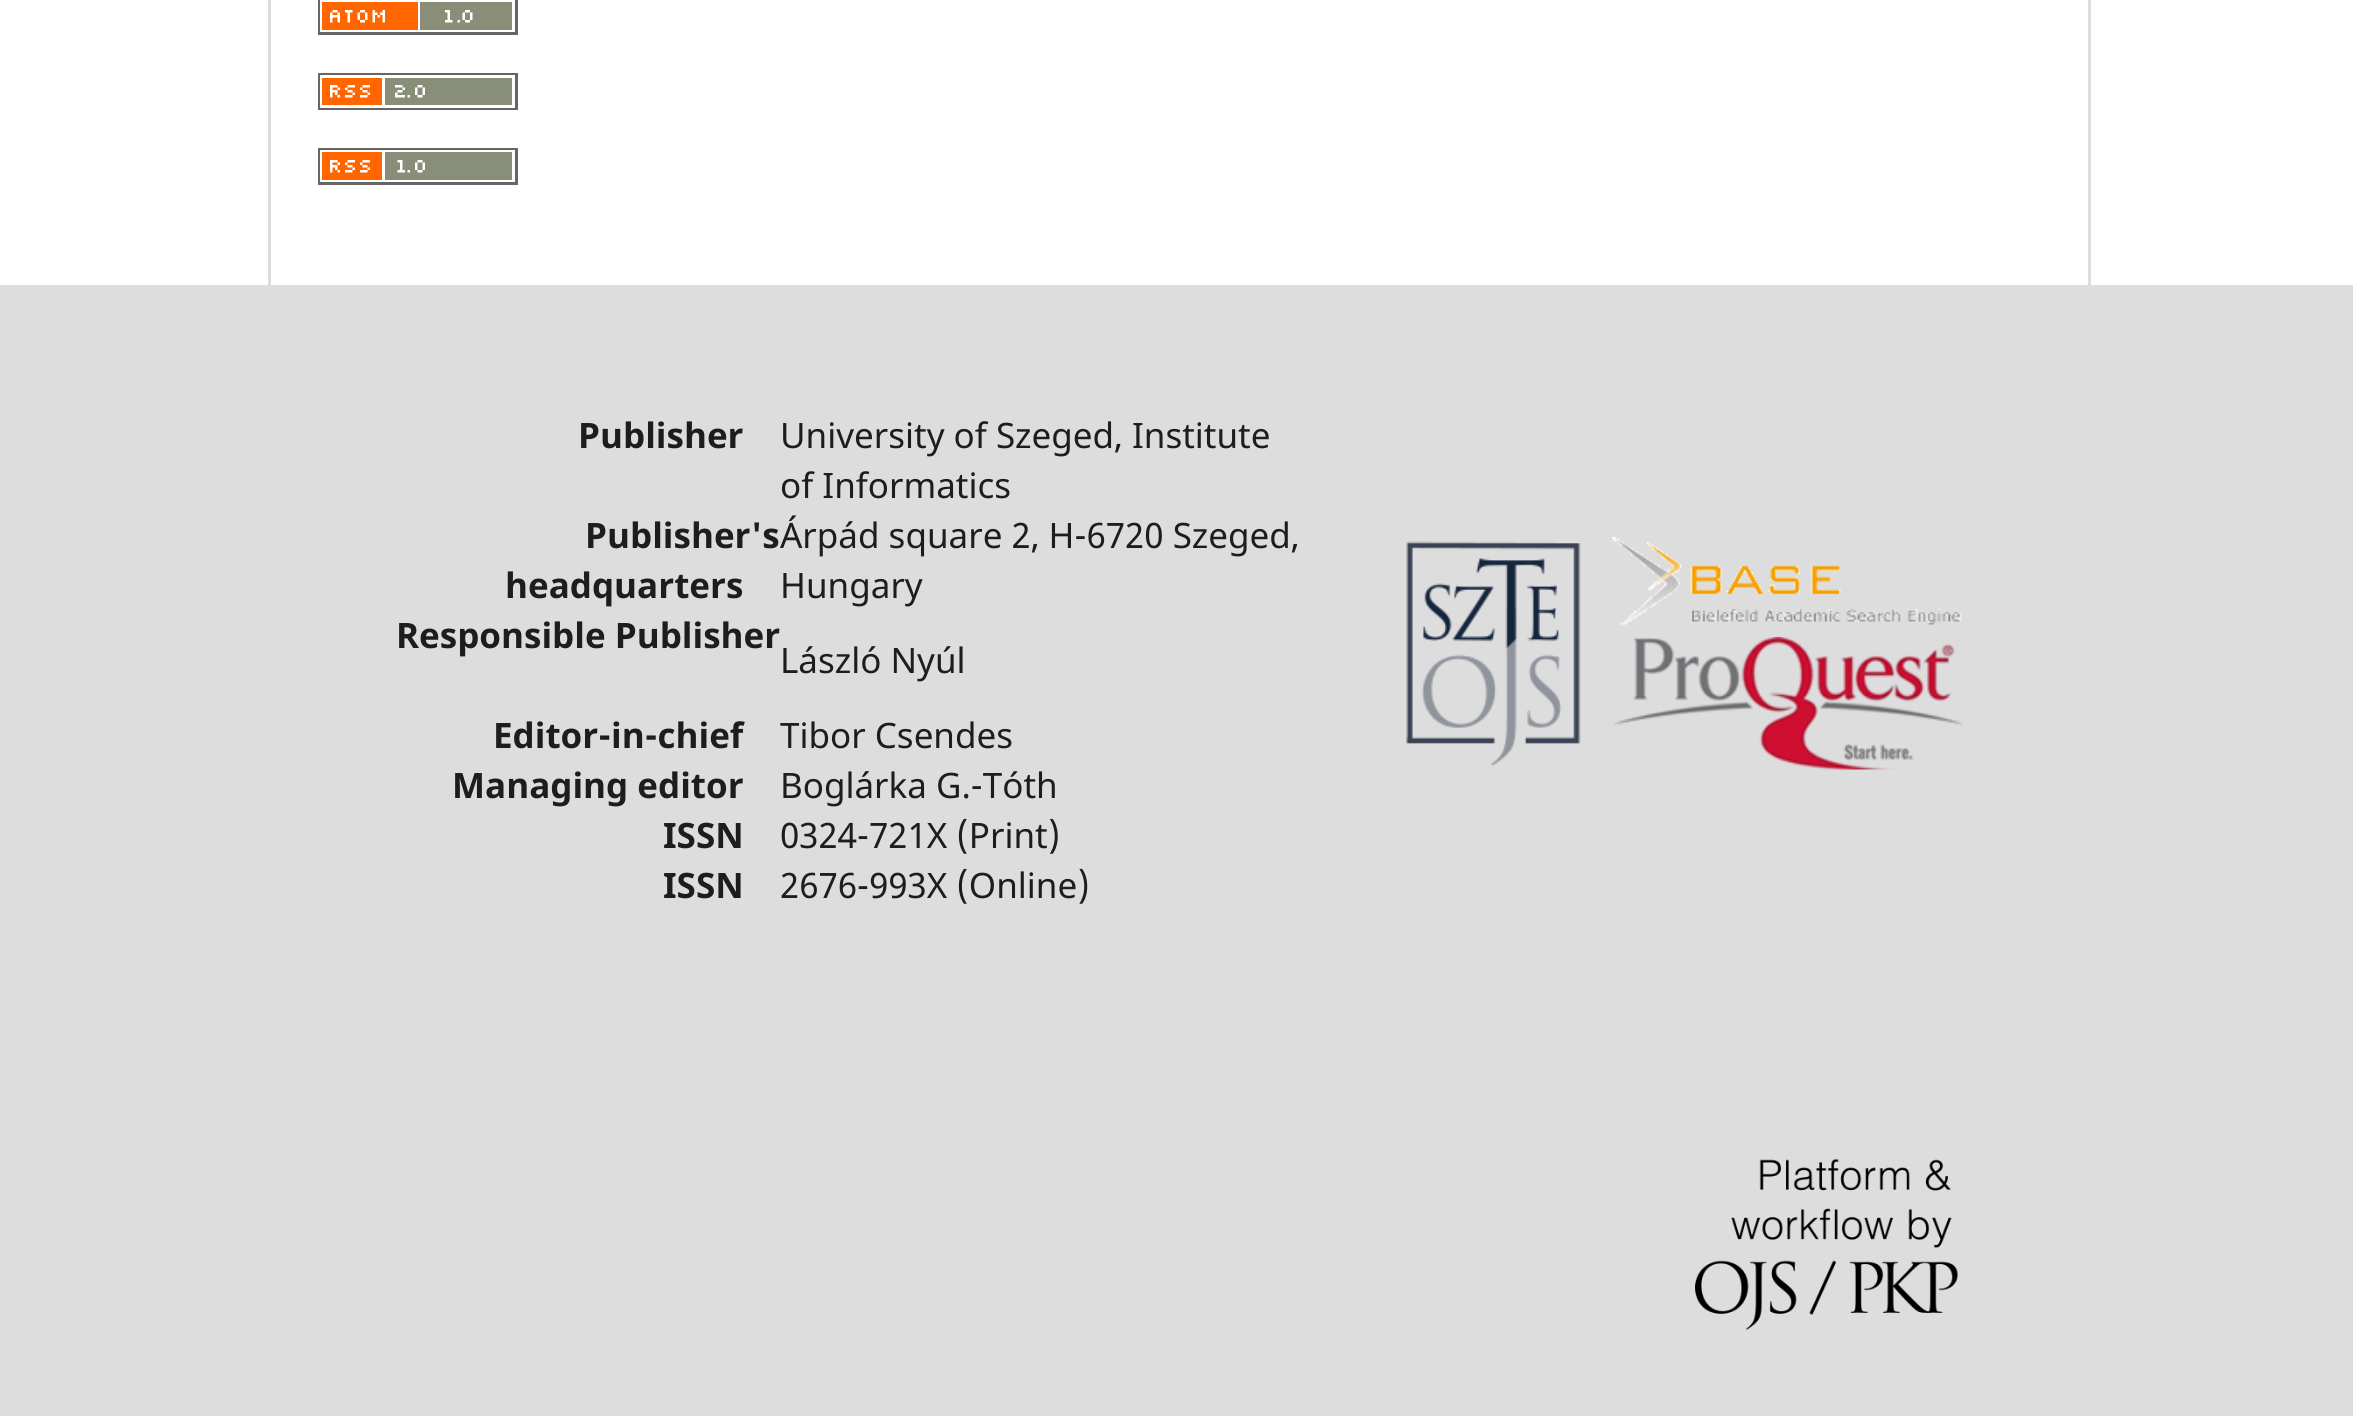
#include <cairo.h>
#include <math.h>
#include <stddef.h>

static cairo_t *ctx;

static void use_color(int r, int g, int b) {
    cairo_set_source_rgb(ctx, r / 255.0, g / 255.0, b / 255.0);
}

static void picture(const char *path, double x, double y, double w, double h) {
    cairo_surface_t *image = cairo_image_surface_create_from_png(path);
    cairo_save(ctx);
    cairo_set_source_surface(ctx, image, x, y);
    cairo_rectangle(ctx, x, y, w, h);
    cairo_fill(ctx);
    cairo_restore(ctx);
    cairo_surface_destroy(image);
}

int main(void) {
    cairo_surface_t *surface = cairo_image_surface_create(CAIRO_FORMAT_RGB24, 2353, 1416);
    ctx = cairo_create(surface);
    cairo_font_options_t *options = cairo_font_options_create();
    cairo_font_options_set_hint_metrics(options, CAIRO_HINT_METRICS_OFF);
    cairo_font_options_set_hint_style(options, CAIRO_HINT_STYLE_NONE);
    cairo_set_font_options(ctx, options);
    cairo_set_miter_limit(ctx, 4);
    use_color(255, 255, 255);
    cairo_paint(ctx);
    use_color(221, 221, 221);
    cairo_rectangle(ctx, 268, 0, 3, 285);
    cairo_fill(ctx);
    cairo_rectangle(ctx, 2088, 0, 3, 285);
    cairo_fill(ctx);
    picture("img1.png", 318, 0, 200, 35);
    picture("img2.png", 318, 73, 200, 37);
    picture("img3.png", 318, 148, 200, 37);
    cairo_rectangle(ctx, 0, 285, 2353, 1131);
    cairo_fill(ctx);
    cairo_select_font_face(ctx, "Noto Sans", CAIRO_FONT_SLANT_NORMAL, CAIRO_FONT_WEIGHT_BOLD);
    cairo_set_font_size(ctx, 35);
    use_color(29, 29, 29);
    cairo_move_to(ctx, 578, 448);
    cairo_show_text(ctx, "Publisher");
    cairo_select_font_face(ctx, "Noto Sans", CAIRO_FONT_SLANT_NORMAL, CAIRO_FONT_WEIGHT_NORMAL);
    cairo_move_to(ctx, 780, 448);
    cairo_show_text(ctx, "University of Szeged, Institute");
    cairo_move_to(ctx, 780, 498);
    cairo_show_text(ctx, "of Informatics");
    cairo_select_font_face(ctx, "Noto Sans", CAIRO_FONT_SLANT_NORMAL, CAIRO_FONT_WEIGHT_BOLD);
    cairo_move_to(ctx, 585, 548);
    cairo_show_text(ctx, "Publisher's");
    cairo_move_to(ctx, 505, 598);
    cairo_show_text(ctx, "headquarters");
    cairo_select_font_face(ctx, "Noto Sans", CAIRO_FONT_SLANT_NORMAL, CAIRO_FONT_WEIGHT_NORMAL);
    cairo_move_to(ctx, 780, 548);
    cairo_show_text(ctx, "Árpád square 2, H-6720 Szeged,");
    cairo_move_to(ctx, 780, 598);
    cairo_show_text(ctx, "Hungary");
    cairo_select_font_face(ctx, "Noto Sans", CAIRO_FONT_SLANT_NORMAL, CAIRO_FONT_WEIGHT_BOLD);
    cairo_move_to(ctx, 396, 648);
    cairo_show_text(ctx, "Responsible Publisher");
    cairo_select_font_face(ctx, "Noto Sans", CAIRO_FONT_SLANT_NORMAL, CAIRO_FONT_WEIGHT_NORMAL);
    cairo_move_to(ctx, 780, 673);
    cairo_show_text(ctx, "László Nyúl");
    cairo_select_font_face(ctx, "Noto Sans", CAIRO_FONT_SLANT_NORMAL, CAIRO_FONT_WEIGHT_BOLD);
    cairo_move_to(ctx, 493, 748);
    cairo_show_text(ctx, "Editor-in-chief");
    cairo_select_font_face(ctx, "Noto Sans", CAIRO_FONT_SLANT_NORMAL, CAIRO_FONT_WEIGHT_NORMAL);
    cairo_move_to(ctx, 780, 748);
    cairo_show_text(ctx, "Tibor Csendes");
    cairo_select_font_face(ctx, "Noto Sans", CAIRO_FONT_SLANT_NORMAL, CAIRO_FONT_WEIGHT_BOLD);
    cairo_move_to(ctx, 452, 798);
    cairo_show_text(ctx, "Managing editor");
    cairo_select_font_face(ctx, "Noto Sans", CAIRO_FONT_SLANT_NORMAL, CAIRO_FONT_WEIGHT_NORMAL);
    cairo_move_to(ctx, 780, 798);
    cairo_show_text(ctx, "Boglárka G.-Tóth");
    cairo_select_font_face(ctx, "Noto Sans", CAIRO_FONT_SLANT_NORMAL, CAIRO_FONT_WEIGHT_BOLD);
    cairo_move_to(ctx, 663, 848);
    cairo_show_text(ctx, "ISSN");
    cairo_select_font_face(ctx, "Noto Sans", CAIRO_FONT_SLANT_NORMAL, CAIRO_FONT_WEIGHT_NORMAL);
    cairo_move_to(ctx, 780, 848);
    cairo_show_text(ctx, "0324-721X (Print)");
    cairo_select_font_face(ctx, "Noto Sans", CAIRO_FONT_SLANT_NORMAL, CAIRO_FONT_WEIGHT_BOLD);
    cairo_move_to(ctx, 663, 898);
    cairo_show_text(ctx, "ISSN");
    cairo_select_font_face(ctx, "Noto Sans", CAIRO_FONT_SLANT_NORMAL, CAIRO_FONT_WEIGHT_NORMAL);
    cairo_move_to(ctx, 780, 898);
    cairo_show_text(ctx, "2676-993X (Online)");
    picture("img4.png", 1406, 541, 175, 225);
    picture("img5.png", 1612, 537, 350, 88);
    picture("img6.png", 1613, 637, 350, 133);
    picture("img7.png", 1695, 1159, 263, 171);
    cairo_surface_write_to_png(surface, "result.png");
    cairo_font_options_destroy(options);
    cairo_destroy(ctx);
    cairo_surface_destroy(surface);
    return 0;
}
